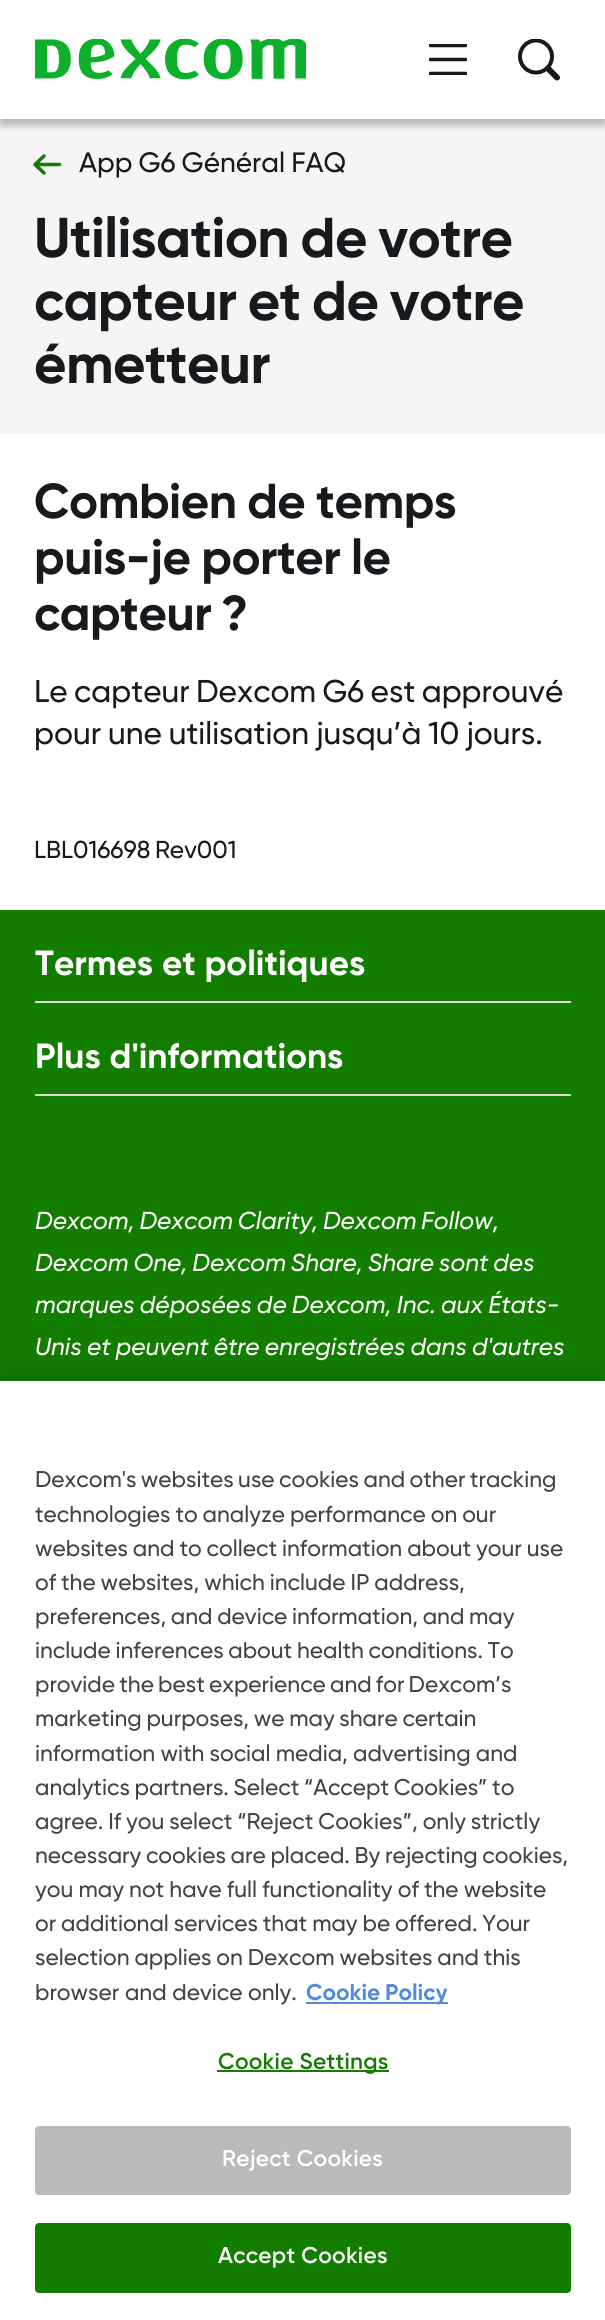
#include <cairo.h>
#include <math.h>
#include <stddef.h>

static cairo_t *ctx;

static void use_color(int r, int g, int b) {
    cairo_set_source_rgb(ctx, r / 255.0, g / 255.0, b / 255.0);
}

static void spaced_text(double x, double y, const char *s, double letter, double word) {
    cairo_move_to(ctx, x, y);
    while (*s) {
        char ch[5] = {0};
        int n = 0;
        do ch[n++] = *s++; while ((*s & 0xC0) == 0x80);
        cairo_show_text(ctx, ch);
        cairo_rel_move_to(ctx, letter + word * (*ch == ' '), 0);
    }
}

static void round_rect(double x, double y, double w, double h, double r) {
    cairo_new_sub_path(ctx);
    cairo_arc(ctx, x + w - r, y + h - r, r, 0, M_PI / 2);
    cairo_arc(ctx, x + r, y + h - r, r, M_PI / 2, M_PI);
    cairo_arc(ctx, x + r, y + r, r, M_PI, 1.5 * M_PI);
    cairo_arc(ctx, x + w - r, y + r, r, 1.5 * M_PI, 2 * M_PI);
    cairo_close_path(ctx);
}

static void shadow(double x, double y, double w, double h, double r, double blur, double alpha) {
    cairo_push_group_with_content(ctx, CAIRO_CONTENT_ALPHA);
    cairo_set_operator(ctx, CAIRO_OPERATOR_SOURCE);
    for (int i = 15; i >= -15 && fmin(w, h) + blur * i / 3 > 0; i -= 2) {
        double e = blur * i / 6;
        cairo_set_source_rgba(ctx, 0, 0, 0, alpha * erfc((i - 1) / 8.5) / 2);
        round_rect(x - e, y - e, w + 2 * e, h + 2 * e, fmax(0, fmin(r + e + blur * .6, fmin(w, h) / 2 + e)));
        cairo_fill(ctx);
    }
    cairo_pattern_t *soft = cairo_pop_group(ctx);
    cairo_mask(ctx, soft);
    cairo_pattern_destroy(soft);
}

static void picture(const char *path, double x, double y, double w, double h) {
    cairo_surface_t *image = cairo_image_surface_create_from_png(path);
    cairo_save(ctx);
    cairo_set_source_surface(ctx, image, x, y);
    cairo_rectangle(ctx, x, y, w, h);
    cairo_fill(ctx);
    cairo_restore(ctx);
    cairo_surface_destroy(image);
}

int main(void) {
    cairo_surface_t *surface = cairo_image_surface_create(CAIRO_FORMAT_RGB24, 605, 2320);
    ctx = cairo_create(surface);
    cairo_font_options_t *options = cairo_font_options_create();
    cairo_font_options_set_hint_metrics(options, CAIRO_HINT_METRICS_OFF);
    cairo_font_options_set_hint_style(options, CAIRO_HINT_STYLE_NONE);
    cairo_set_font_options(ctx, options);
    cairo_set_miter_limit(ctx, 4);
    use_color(255, 255, 255);
    cairo_paint(ctx);
    use_color(245, 245, 245);
    cairo_rectangle(ctx, 0, 119, 605, 315);
    cairo_fill(ctx);
    cairo_save(ctx);
    cairo_rectangle(ctx, 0, 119, 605, 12);
    cairo_clip(ctx);
    use_color(0, 0, 0);
    shadow(0, 7, 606, 119, 0, 3.5, 0.25);
    cairo_restore(ctx);
    picture("img1.png", 35, 39, 271, 41);
    picture("img2.png", 429, 44, 38, 31);
    cairo_save(ctx);
    cairo_rectangle(ctx, 518, 39, 42, 42);
    cairo_clip(ctx);
    cairo_arc(ctx, 536, 56.5, 16, 0, 2 * M_PI);
    use_color(22, 26, 29);
    cairo_set_line_width(ctx, 4);
    cairo_stroke(ctx);
    cairo_restore(ctx);
    cairo_new_path(ctx);
    cairo_move_to(ctx, 548, 68.5);
    cairo_line_to(ctx, 557, 77.5);
    use_color(22, 26, 29);
    cairo_set_line_width(ctx, 6);
    cairo_set_line_cap(ctx, CAIRO_LINE_CAP_ROUND);
    cairo_stroke(ctx);
    cairo_new_path(ctx);
    cairo_move_to(ctx, 44, 156);
    cairo_line_to(ctx, 35, 164.5);
    cairo_line_to(ctx, 44, 173);
    cairo_move_to(ctx, 35, 164.5);
    cairo_line_to(ctx, 59.5, 164.5);
    use_color(19, 125, 0);
    cairo_set_line_width(ctx, 3.5);
    cairo_set_line_join(ctx, CAIRO_LINE_JOIN_ROUND);
    cairo_stroke(ctx);
    cairo_select_font_face(ctx, "Gilroy Medium", CAIRO_FONT_SLANT_NORMAL, CAIRO_FONT_WEIGHT_NORMAL);
    cairo_set_font_size(ctx, 28);
    use_color(22, 26, 29);
    spaced_text(79, 172, "App G6 Général FAQ", 0, -1);
    cairo_select_font_face(ctx, "Gilroy", CAIRO_FONT_SLANT_NORMAL, CAIRO_FONT_WEIGHT_BOLD);
    cairo_set_font_size(ctx, 56);
    spaced_text(34, 257, "Utilisation de votre", -0.6, -2);
    spaced_text(34, 320, "capteur et de votre", -0.6, -2);
    spaced_text(34, 383, "émetteur", -0.6, 0);
    cairo_set_font_size(ctx, 49);
    spaced_text(34, 518, "Combien de temps", -0.5, -1);
    spaced_text(34, 574, "puis-je porter le", -0.5, -1);
    spaced_text(34, 630, "capteur ?", -0.5, -2);
    cairo_select_font_face(ctx, "Gilroy Medium", CAIRO_FONT_SLANT_NORMAL, CAIRO_FONT_WEIGHT_NORMAL);
    cairo_set_font_size(ctx, 31.5);
    spaced_text(34, 702, "Le capteur Dexcom G6 est approuvé", 0, -1.5);
    spaced_text(34, 744, "pour une utilisation jusqu’à 10 jours.", 0, -1);
    cairo_set_font_size(ctx, 24.5);
    spaced_text(34, 858, "LBL016698 Rev001", 0, -1.5);
    use_color(19, 125, 0);
    cairo_rectangle(ctx, 0, 910, 605, 471);
    cairo_fill(ctx);
    cairo_select_font_face(ctx, "Gilroy", CAIRO_FONT_SLANT_NORMAL, CAIRO_FONT_WEIGHT_BOLD);
    cairo_set_font_size(ctx, 35);
    use_color(255, 255, 255);
    cairo_move_to(ctx, 35, 975);
    cairo_show_text(ctx, "Termes et politiques");
    use_color(220, 219, 218);
    cairo_rectangle(ctx, 35, 1001, 536, 2);
    cairo_fill(ctx);
    cairo_rectangle(ctx, 35, 1094, 536, 2);
    cairo_fill(ctx);
    use_color(255, 255, 255);
    cairo_move_to(ctx, 35, 1068);
    cairo_show_text(ctx, "Plus d'informations");
    cairo_select_font_face(ctx, "Gilroy Medium", CAIRO_FONT_SLANT_ITALIC, CAIRO_FONT_WEIGHT_NORMAL);
    cairo_set_font_size(ctx, 24.5);
    spaced_text(35, 1229, "Dexcom, Dexcom Clarity, Dexcom Follow,", 0, -1.5);
    spaced_text(35, 1271, "Dexcom One, Dexcom Share, Share sont des", 0, -1.25);
    spaced_text(35, 1313, "marques déposées de Dexcom, Inc. aux États-", 0, -1);
    spaced_text(35, 1355, "Unis et peuvent être enregistrées dans d'autres", 0, -1);
    use_color(0, 0, 0);
    shadow(0, 1381, 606, 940, 0, 16, 0.2);
    use_color(255, 255, 255);
    cairo_rectangle(ctx, 0, 1381, 605, 939);
    cairo_fill(ctx);
    cairo_select_font_face(ctx, "Gilroy Medium", CAIRO_FONT_SLANT_NORMAL, CAIRO_FONT_WEIGHT_NORMAL);
    cairo_set_font_size(ctx, 22.75);
    use_color(67, 65, 65);
    spaced_text(35, 1487, "Dexcom's websites use cookies and other tracking", 0, -1.25);
    spaced_text(35, 1522, "technologies to analyze performance on our", 0, -0.75);
    spaced_text(35, 1556, "websites and to collect information about your use", 0, -0.75);
    spaced_text(35, 1590, "of the websites, which include IP address,", 0, -0.75);
    spaced_text(35, 1624, "preferences, and device information, and may", 0, -1);
    spaced_text(35, 1658, "include inferences about health conditions. To", 0, -1);
    spaced_text(35, 1692, "provide the best experience and for Dexcom’s", 0, -1.5);
    spaced_text(35, 1726, "marketing purposes, we may share certain", 0, -1);
    spaced_text(35, 1761, "information with social media, advertising and", 0, -0.5);
    spaced_text(35, 1795, "analytics partners. Select “Accept Cookies” to", 0, -1);
    spaced_text(35, 1829, "agree. If you select “Reject Cookies”, only strictly", 0, -0.75);
    spaced_text(35, 1863, "necessary cookies are placed. By rejecting cookies,", 0, -1);
    spaced_text(35, 1897, "you may not have full functionality of the website", 0, -0.5);
    spaced_text(35, 1931, "or additional services that may be offered. Your", 0, -0.75);
    spaced_text(35, 1965, "selection applies on Dexcom websites and this", 0, -0.75);
    cairo_move_to(ctx, 35, 2000);
    cairo_show_text(ctx, "browser and device only.");
    use_color(85, 139, 219);
    cairo_rectangle(ctx, 306, 2002, 142, 2);
    cairo_fill(ctx);
    cairo_select_font_face(ctx, "Gilroy", CAIRO_FONT_SLANT_NORMAL, CAIRO_FONT_WEIGHT_BOLD);
    spaced_text(306, 2000, "Cookie Policy", 0, -1);
    use_color(19, 125, 0);
    cairo_rectangle(ctx, 217, 2070, 172, 2);
    cairo_fill(ctx);
    cairo_select_font_face(ctx, "Gilroy SemiBold", CAIRO_FONT_SLANT_NORMAL, CAIRO_FONT_WEIGHT_NORMAL);
    spaced_text(218, 2069, "Cookie Settings", 0.25, 0);
    use_color(184, 186, 188);
    round_rect(35, 2126, 536, 69, 4);
    cairo_fill(ctx);
    use_color(255, 255, 255);
    spaced_text(222, 2166, "Reject Cookies", 0.25, 0);
    use_color(19, 125, 0);
    round_rect(35, 2223, 536, 70, 4);
    cairo_fill(ctx);
    use_color(255, 255, 255);
    spaced_text(218, 2263, "Accept Cookies", 0.25, 0);
    cairo_surface_write_to_png(surface, "result.png");
    cairo_font_options_destroy(options);
    cairo_destroy(ctx);
    cairo_surface_destroy(surface);
    return 0;
}
